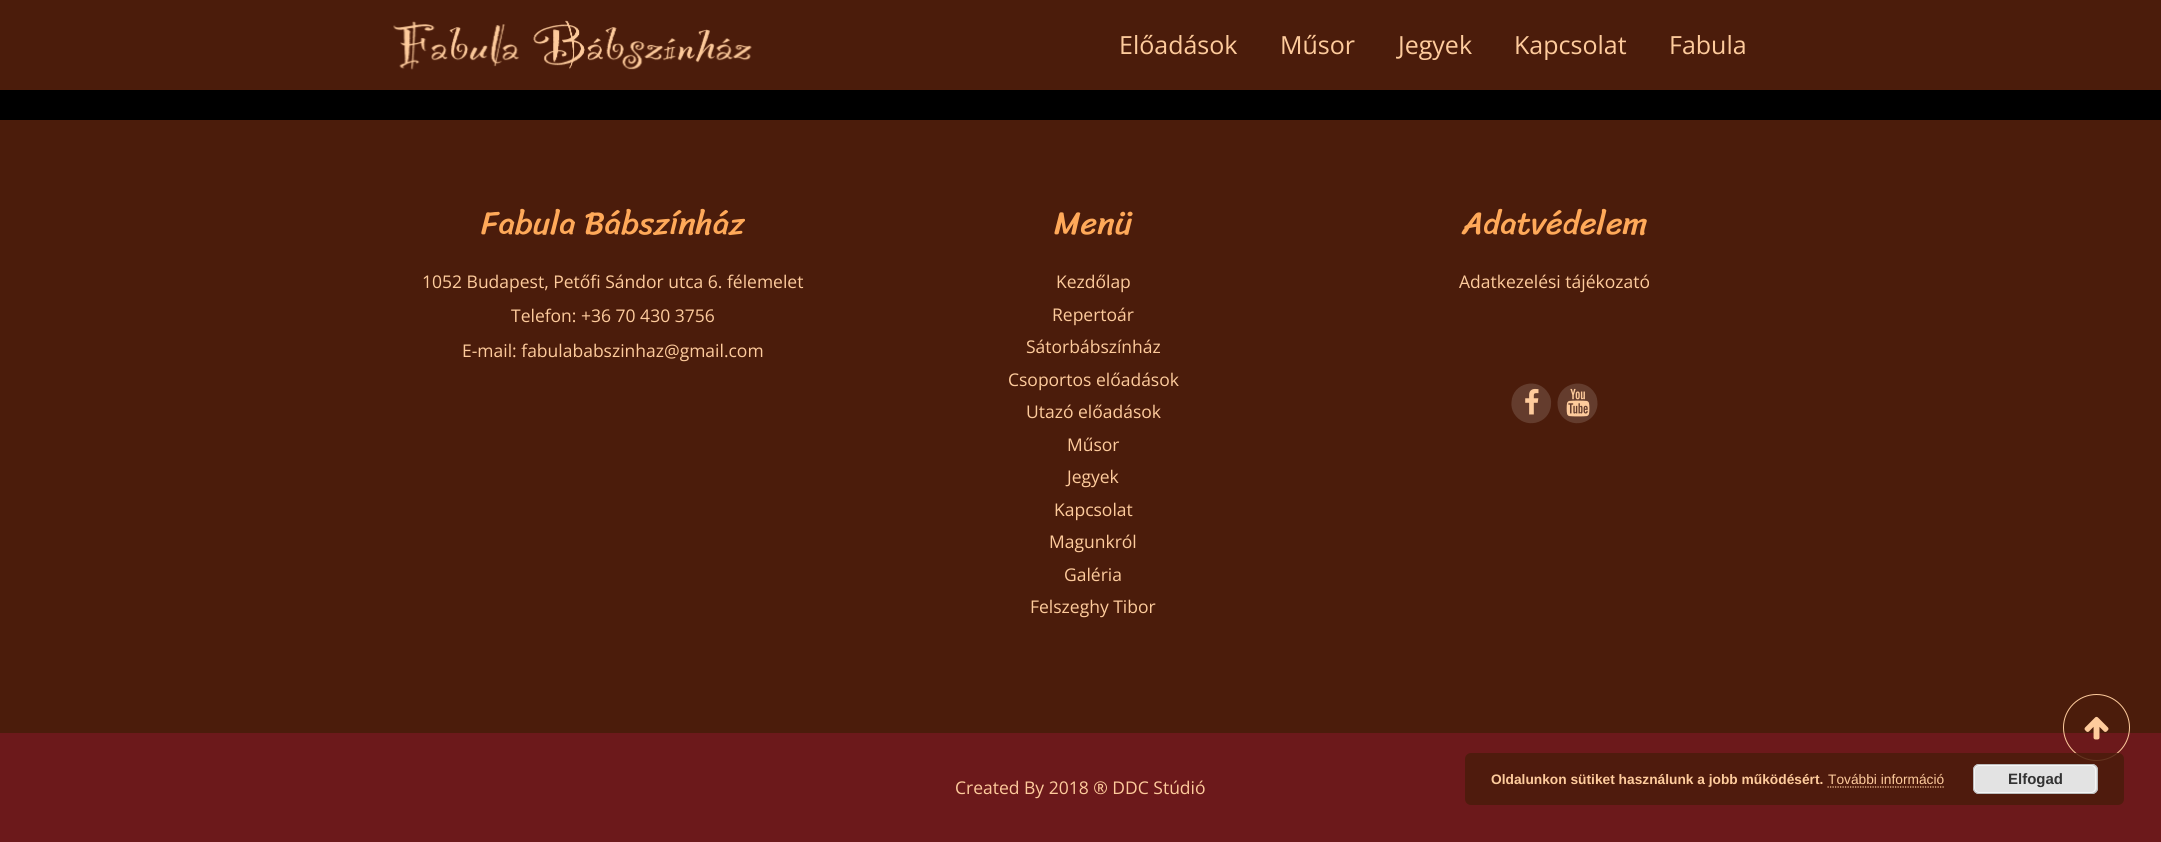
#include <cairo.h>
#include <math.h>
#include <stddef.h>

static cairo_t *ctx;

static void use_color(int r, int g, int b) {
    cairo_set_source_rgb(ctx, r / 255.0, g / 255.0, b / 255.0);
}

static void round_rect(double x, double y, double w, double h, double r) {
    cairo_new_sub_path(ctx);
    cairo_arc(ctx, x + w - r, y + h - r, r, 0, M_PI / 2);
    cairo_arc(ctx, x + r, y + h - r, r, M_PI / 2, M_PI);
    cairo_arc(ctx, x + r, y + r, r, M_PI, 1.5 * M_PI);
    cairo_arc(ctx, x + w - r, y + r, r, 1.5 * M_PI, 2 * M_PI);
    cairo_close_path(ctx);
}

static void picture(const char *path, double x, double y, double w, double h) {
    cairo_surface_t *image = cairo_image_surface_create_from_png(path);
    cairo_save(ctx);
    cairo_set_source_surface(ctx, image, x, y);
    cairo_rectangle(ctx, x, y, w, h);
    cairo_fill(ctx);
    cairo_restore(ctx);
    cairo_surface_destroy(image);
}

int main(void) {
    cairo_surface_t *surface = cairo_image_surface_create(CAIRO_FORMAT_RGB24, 2161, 842);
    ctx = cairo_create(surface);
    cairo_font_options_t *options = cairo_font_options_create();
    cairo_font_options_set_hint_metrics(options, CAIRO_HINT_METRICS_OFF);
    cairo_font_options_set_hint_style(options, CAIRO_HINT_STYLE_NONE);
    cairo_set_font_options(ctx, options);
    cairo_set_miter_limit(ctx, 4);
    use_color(0, 0, 0);
    cairo_paint(ctx);
    use_color(75, 28, 11);
    cairo_rectangle(ctx, 0, 0, 2161, 90);
    cairo_fill(ctx);
    picture("img1.png", 393, 20, 359, 50);
    cairo_select_font_face(ctx, "Open Sans", CAIRO_FONT_SLANT_NORMAL, CAIRO_FONT_WEIGHT_NORMAL);
    cairo_set_font_size(ctx, 25);
    use_color(254, 203, 156);
    cairo_move_to(ctx, 1119, 54);
    cairo_show_text(ctx, "Előadások");
    cairo_move_to(ctx, 1280, 54);
    cairo_show_text(ctx, "Műsor");
    cairo_move_to(ctx, 1398, 54);
    cairo_show_text(ctx, "Jegyek");
    cairo_move_to(ctx, 1514, 54);
    cairo_show_text(ctx, "Kapcsolat");
    cairo_move_to(ctx, 1669, 54);
    cairo_show_text(ctx, "Fabula");
    use_color(75, 28, 11);
    cairo_rectangle(ctx, 0, 120, 2161, 613);
    cairo_fill(ctx);
    cairo_select_font_face(ctx, "Sriracha", CAIRO_FONT_SLANT_NORMAL, CAIRO_FONT_WEIGHT_NORMAL);
    cairo_set_font_size(ctx, 32.5);
    use_color(255, 169, 89);
    cairo_move_to(ctx, 481, 234);
    cairo_show_text(ctx, "Fabula Bábszínház");
    cairo_select_font_face(ctx, "Open Sans", CAIRO_FONT_SLANT_NORMAL, CAIRO_FONT_WEIGHT_NORMAL);
    cairo_set_font_size(ctx, 17.5);
    use_color(254, 203, 156);
    cairo_move_to(ctx, 422, 288);
    cairo_show_text(ctx, "1052 Budapest, Petőfi Sándor utca 6. félemelet");
    cairo_move_to(ctx, 511, 322);
    cairo_show_text(ctx, "Telefon: +36 70 430 3756");
    cairo_move_to(ctx, 462, 357);
    cairo_show_text(ctx, "E-mail: fabulababszinhaz@gmail.com");
    cairo_select_font_face(ctx, "Sriracha", CAIRO_FONT_SLANT_NORMAL, CAIRO_FONT_WEIGHT_NORMAL);
    cairo_set_font_size(ctx, 32.5);
    use_color(255, 169, 89);
    cairo_move_to(ctx, 1054, 234);
    cairo_show_text(ctx, "Menü");
    cairo_select_font_face(ctx, "Open Sans", CAIRO_FONT_SLANT_NORMAL, CAIRO_FONT_WEIGHT_NORMAL);
    cairo_set_font_size(ctx, 17.5);
    use_color(254, 203, 156);
    cairo_move_to(ctx, 1056, 288);
    cairo_show_text(ctx, "Kezdőlap");
    cairo_move_to(ctx, 1052, 321);
    cairo_show_text(ctx, "Repertoár");
    cairo_move_to(ctx, 1026, 353);
    cairo_show_text(ctx, "Sátorbábszínház");
    cairo_move_to(ctx, 1008, 386);
    cairo_show_text(ctx, "Csoportos előadások");
    cairo_move_to(ctx, 1026, 418);
    cairo_show_text(ctx, "Utazó előadások");
    cairo_move_to(ctx, 1067, 451);
    cairo_show_text(ctx, "Műsor");
    cairo_move_to(ctx, 1067, 483);
    cairo_show_text(ctx, "Jegyek");
    cairo_move_to(ctx, 1054, 516);
    cairo_show_text(ctx, "Kapcsolat");
    cairo_move_to(ctx, 1049, 548);
    cairo_show_text(ctx, "Magunkról");
    cairo_move_to(ctx, 1064, 581);
    cairo_show_text(ctx, "Galéria");
    cairo_move_to(ctx, 1030, 613);
    cairo_show_text(ctx, "Felszeghy Tibor");
    cairo_select_font_face(ctx, "Sriracha", CAIRO_FONT_SLANT_NORMAL, CAIRO_FONT_WEIGHT_NORMAL);
    cairo_set_font_size(ctx, 32.5);
    use_color(255, 169, 89);
    cairo_move_to(ctx, 1462, 234);
    cairo_show_text(ctx, "Adatvédelem");
    cairo_select_font_face(ctx, "Open Sans", CAIRO_FONT_SLANT_NORMAL, CAIRO_FONT_WEIGHT_NORMAL);
    cairo_set_font_size(ctx, 17.5);
    use_color(254, 203, 156);
    cairo_move_to(ctx, 1459, 288);
    cairo_show_text(ctx, "Adatkezelési tájékozató");
    use_color(100, 60, 45);
    cairo_new_path(ctx);
    cairo_move_to(ctx, 1548.5, 393.5);
    cairo_curve_to(ctx, 1550.5, 396.5, 1551.5, 400.5, 1551, 404.5);
    cairo_curve_to(ctx, 1550, 424.5, 1524, 430, 1514, 413.5);
    cairo_curve_to(ctx, 1512, 410, 1511, 406, 1511.5, 402);
    cairo_curve_to(ctx, 1512.5, 382.5, 1538.5, 376.5, 1548.5, 393.5);
    cairo_close_path(ctx);
    cairo_fill(ctx);
    picture("img2.png", 1525, 388, 14, 27);
    cairo_new_path(ctx);
    cairo_move_to(ctx, 1595, 393.5);
    cairo_curve_to(ctx, 1597, 396.5, 1597.5, 400.5, 1597.5, 404.5);
    cairo_curve_to(ctx, 1596, 424.5, 1570, 430, 1560, 413.5);
    cairo_curve_to(ctx, 1558, 410, 1557.5, 406, 1557.5, 402);
    cairo_curve_to(ctx, 1559, 382.5, 1585, 376.5, 1595, 393.5);
    cairo_close_path(ctx);
    cairo_fill(ctx);
    picture("img3.png", 1566, 388, 24, 29);
    use_color(108, 25, 27);
    cairo_rectangle(ctx, 0, 733, 2161, 109);
    cairo_fill(ctx);
    use_color(254, 203, 156);
    cairo_move_to(ctx, 955, 794);
    cairo_show_text(ctx, "Created By 2018 ® DDC Stúdió");
    cairo_new_path(ctx);
    cairo_arc(ctx, 2096.5, 727.5, 33, 0, 2 * M_PI);
    cairo_set_line_width(ctx, 1);
    cairo_stroke(ctx);
    picture("img4.png", 2084, 716, 25, 24);
    cairo_set_source_rgba(ctx, 0.294, 0.11, 0.043, 0.85);
    round_rect(1465, 753, 659, 52, 6);
    cairo_fill(ctx);
    cairo_select_font_face(ctx, "Liberation Sans", CAIRO_FONT_SLANT_NORMAL, CAIRO_FONT_WEIGHT_BOLD);
    cairo_set_font_size(ctx, 13.75);
    use_color(254, 203, 156);
    cairo_move_to(ctx, 1491, 784);
    cairo_show_text(ctx, "Oldalunkon sütiket használunk a jobb működésért.");
    cairo_select_font_face(ctx, "Liberation Sans", CAIRO_FONT_SLANT_NORMAL, CAIRO_FONT_WEIGHT_NORMAL);
    cairo_move_to(ctx, 1828, 784);
    cairo_show_text(ctx, "További információ");
    cairo_new_path(ctx);
    cairo_move_to(ctx, 1827.5, 787);
    cairo_line_to(ctx, 1944, 787);
    cairo_set_line_width(ctx, 1.2);
    cairo_set_dash(ctx, (double[]){1.25, 1.25}, 2, 0);
    cairo_stroke(ctx);
    use_color(227, 227, 227);
    round_rect(1973, 764, 125, 30, 6);
    cairo_fill(ctx);
    round_rect(1974.5, 765.5, 121, 27, 4.5);
    use_color(246, 246, 246);
    cairo_set_line_width(ctx, 1);
    cairo_set_dash(ctx, NULL, 0, 0);
    cairo_stroke(ctx);
    round_rect(1973.5, 764.5, 124, 29, 5.5);
    use_color(187, 187, 187);
    cairo_stroke(ctx);
    cairo_select_font_face(ctx, "Liberation Sans", CAIRO_FONT_SLANT_NORMAL, CAIRO_FONT_WEIGHT_BOLD);
    cairo_set_font_size(ctx, 15);
    use_color(51, 51, 51);
    cairo_move_to(ctx, 2008, 784);
    cairo_show_text(ctx, "Elfogad");
    cairo_surface_write_to_png(surface, "result.png");
    cairo_font_options_destroy(options);
    cairo_destroy(ctx);
    cairo_surface_destroy(surface);
    return 0;
}
